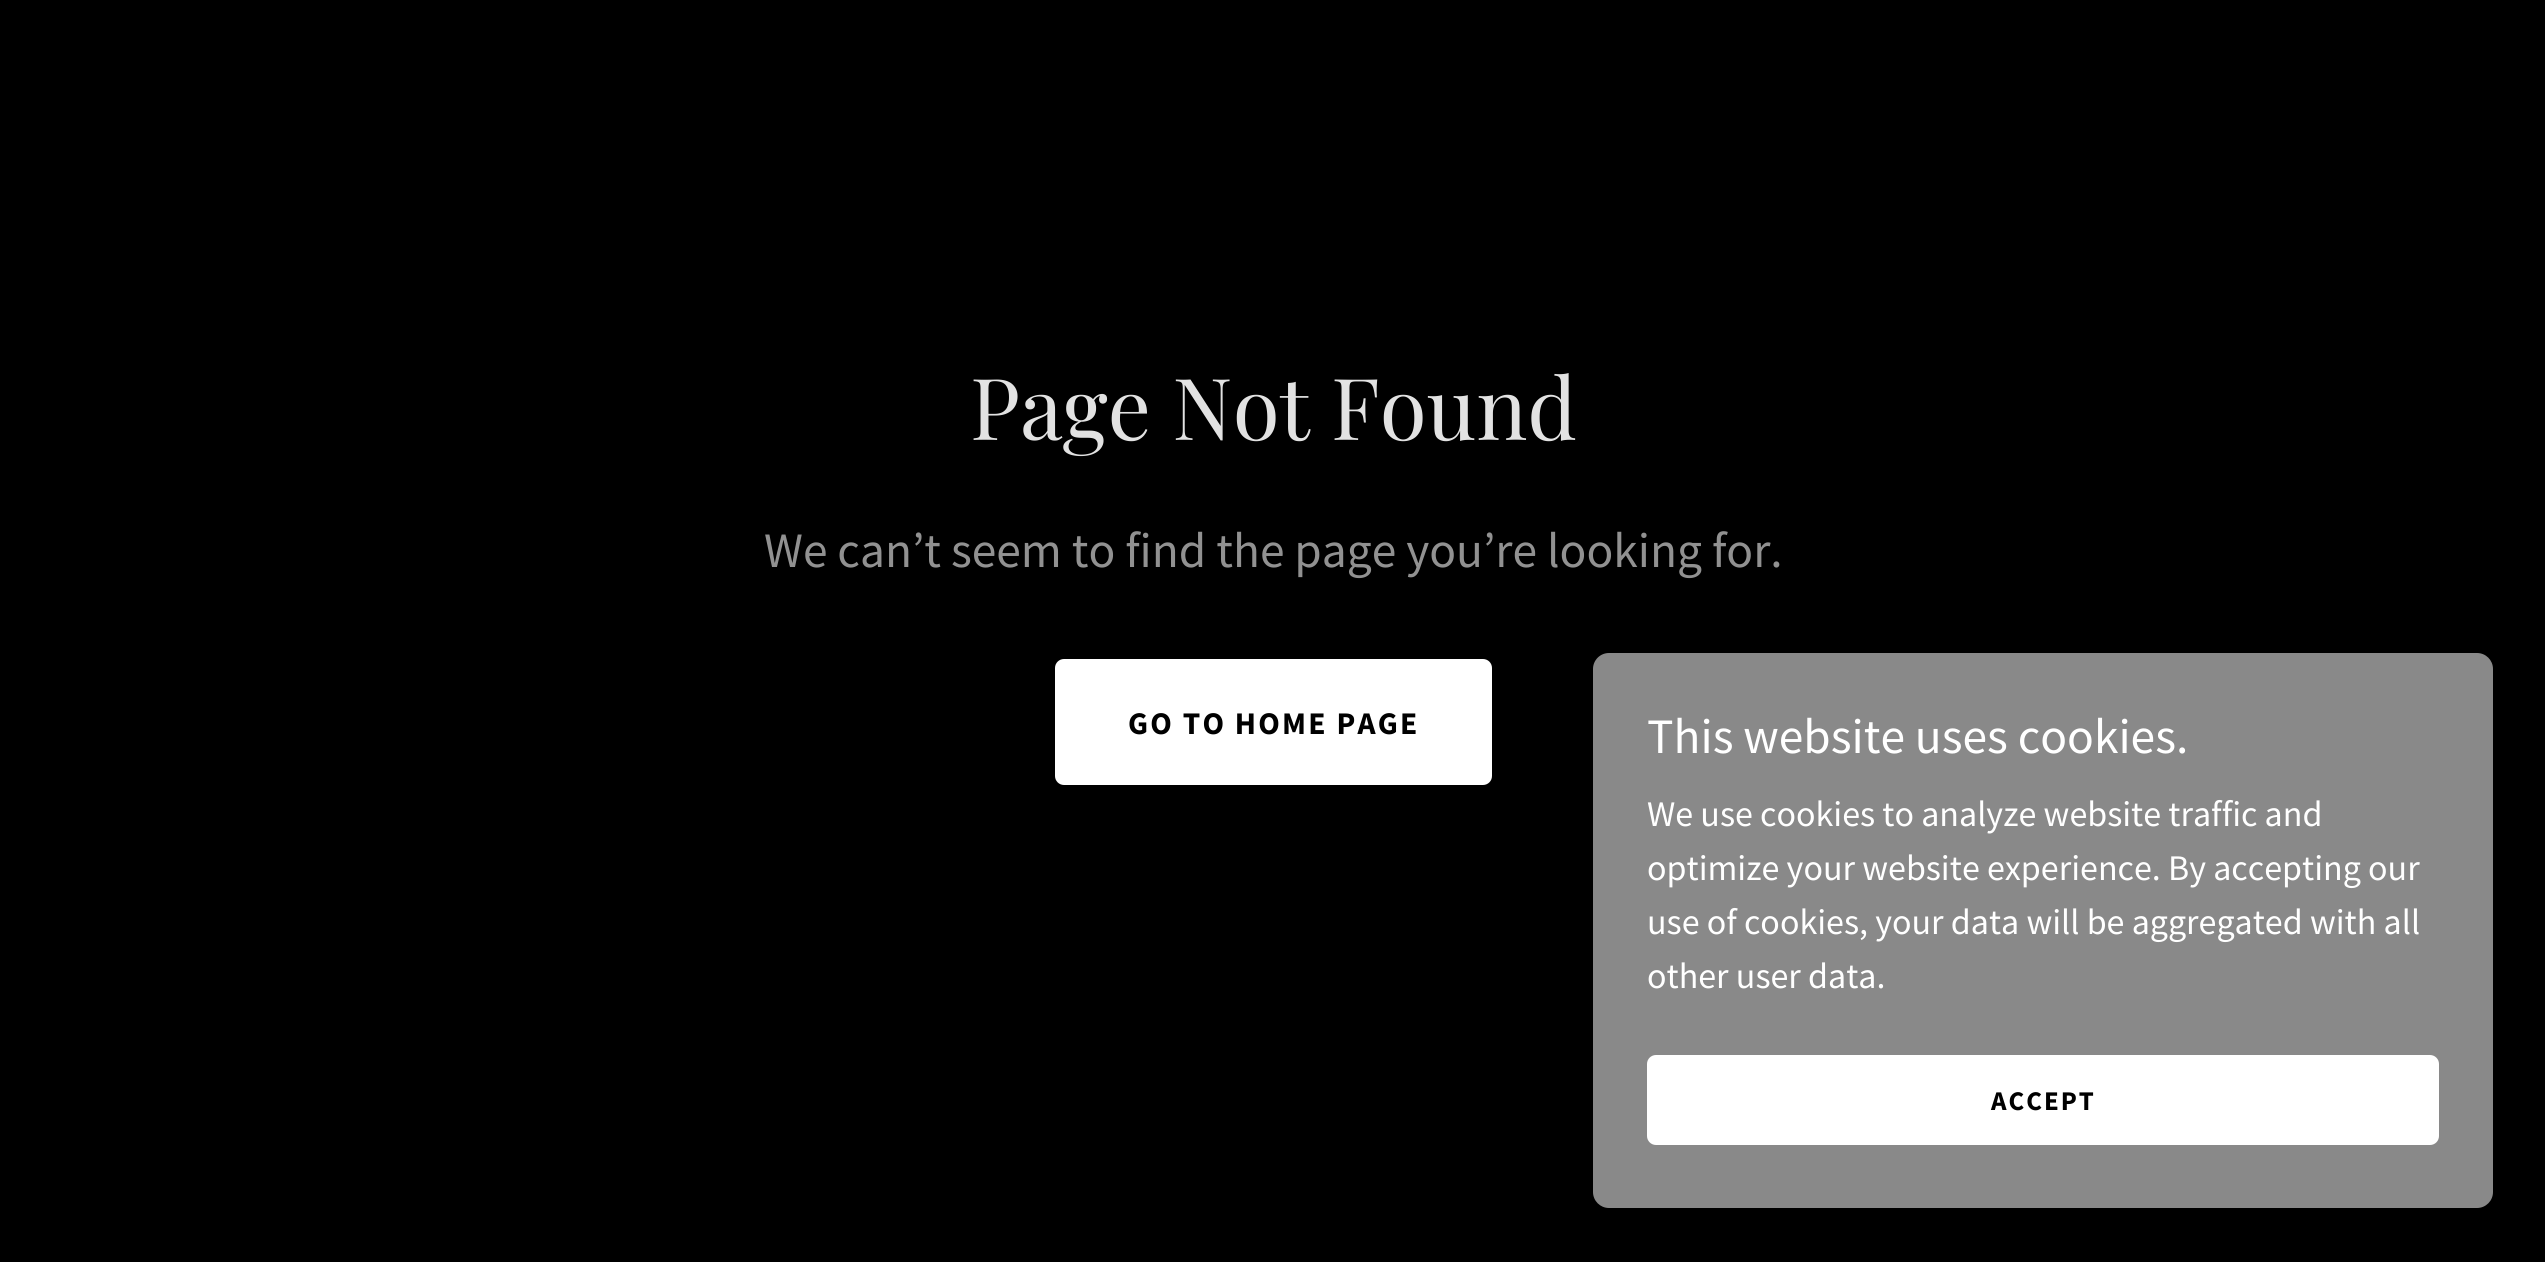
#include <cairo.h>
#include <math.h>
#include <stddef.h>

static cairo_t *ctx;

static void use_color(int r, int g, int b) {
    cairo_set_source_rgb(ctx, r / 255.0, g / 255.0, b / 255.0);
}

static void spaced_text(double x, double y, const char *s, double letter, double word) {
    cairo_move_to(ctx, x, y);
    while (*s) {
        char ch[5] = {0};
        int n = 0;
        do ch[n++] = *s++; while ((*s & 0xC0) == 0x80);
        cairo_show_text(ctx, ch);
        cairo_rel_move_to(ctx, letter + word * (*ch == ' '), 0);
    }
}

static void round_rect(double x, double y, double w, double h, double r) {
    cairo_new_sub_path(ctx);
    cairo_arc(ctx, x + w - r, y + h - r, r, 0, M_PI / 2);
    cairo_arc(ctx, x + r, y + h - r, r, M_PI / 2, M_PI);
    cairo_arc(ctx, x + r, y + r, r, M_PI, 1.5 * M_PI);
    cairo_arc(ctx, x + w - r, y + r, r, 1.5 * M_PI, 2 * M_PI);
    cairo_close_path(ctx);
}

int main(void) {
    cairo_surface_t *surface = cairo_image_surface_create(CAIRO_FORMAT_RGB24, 2545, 1262);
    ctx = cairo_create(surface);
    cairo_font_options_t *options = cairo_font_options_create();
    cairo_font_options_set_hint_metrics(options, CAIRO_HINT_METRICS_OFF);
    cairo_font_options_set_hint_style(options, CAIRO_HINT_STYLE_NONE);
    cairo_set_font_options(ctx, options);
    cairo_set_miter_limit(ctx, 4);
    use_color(0, 0, 0);
    cairo_paint(ctx);
    cairo_select_font_face(ctx, "Playfair Display", CAIRO_FONT_SLANT_NORMAL, CAIRO_FONT_WEIGHT_NORMAL);
    cairo_set_font_size(ctx, 85.5);
    use_color(226, 226, 226);
    cairo_move_to(ctx, 970, 440);
    cairo_show_text(ctx, "Page Not Found");
    cairo_select_font_face(ctx, "Source Sans Pro", CAIRO_FONT_SLANT_NORMAL, CAIRO_FONT_WEIGHT_NORMAL);
    cairo_set_font_size(ctx, 49.5);
    use_color(145, 145, 145);
    cairo_move_to(ctx, 764, 567);
    cairo_show_text(ctx, "We can’t seem to find the page you’re looking for.");
    use_color(255, 255, 255);
    round_rect(1055, 659, 437, 126, 9);
    cairo_fill(ctx);
    cairo_select_font_face(ctx, "Source Sans Pro", CAIRO_FONT_SLANT_NORMAL, CAIRO_FONT_WEIGHT_BOLD);
    cairo_set_font_size(ctx, 31.5);
    use_color(0, 0, 0);
    spaced_text(1128, 734, "GO TO HOME PAGE", 2.25, 0);
    use_color(137, 137, 137);
    round_rect(1593, 653, 900, 555, 16);
    cairo_fill(ctx);
    cairo_select_font_face(ctx, "Source Sans Pro", CAIRO_FONT_SLANT_NORMAL, CAIRO_FONT_WEIGHT_NORMAL);
    cairo_set_font_size(ctx, 49.5);
    use_color(255, 255, 255);
    cairo_move_to(ctx, 1647, 753);
    cairo_show_text(ctx, "This website uses cookies.");
    cairo_set_font_size(ctx, 36);
    cairo_move_to(ctx, 1647, 826);
    cairo_show_text(ctx, "We use cookies to analyze website traffic and");
    cairo_move_to(ctx, 1647, 880);
    cairo_show_text(ctx, "optimize your website experience. By accepting our");
    cairo_move_to(ctx, 1647, 934);
    cairo_show_text(ctx, "use of cookies, your data will be aggregated with all");
    cairo_move_to(ctx, 1647, 988);
    cairo_show_text(ctx, "other user data.");
    round_rect(1647, 1055, 792, 90, 9);
    cairo_fill(ctx);
    cairo_select_font_face(ctx, "Source Sans Pro", CAIRO_FONT_SLANT_NORMAL, CAIRO_FONT_WEIGHT_BOLD);
    cairo_set_font_size(ctx, 27);
    use_color(0, 0, 0);
    spaced_text(1991, 1110, "ACCEPT", 2, 0);
    cairo_surface_write_to_png(surface, "result.png");
    cairo_font_options_destroy(options);
    cairo_destroy(ctx);
    cairo_surface_destroy(surface);
    return 0;
}
